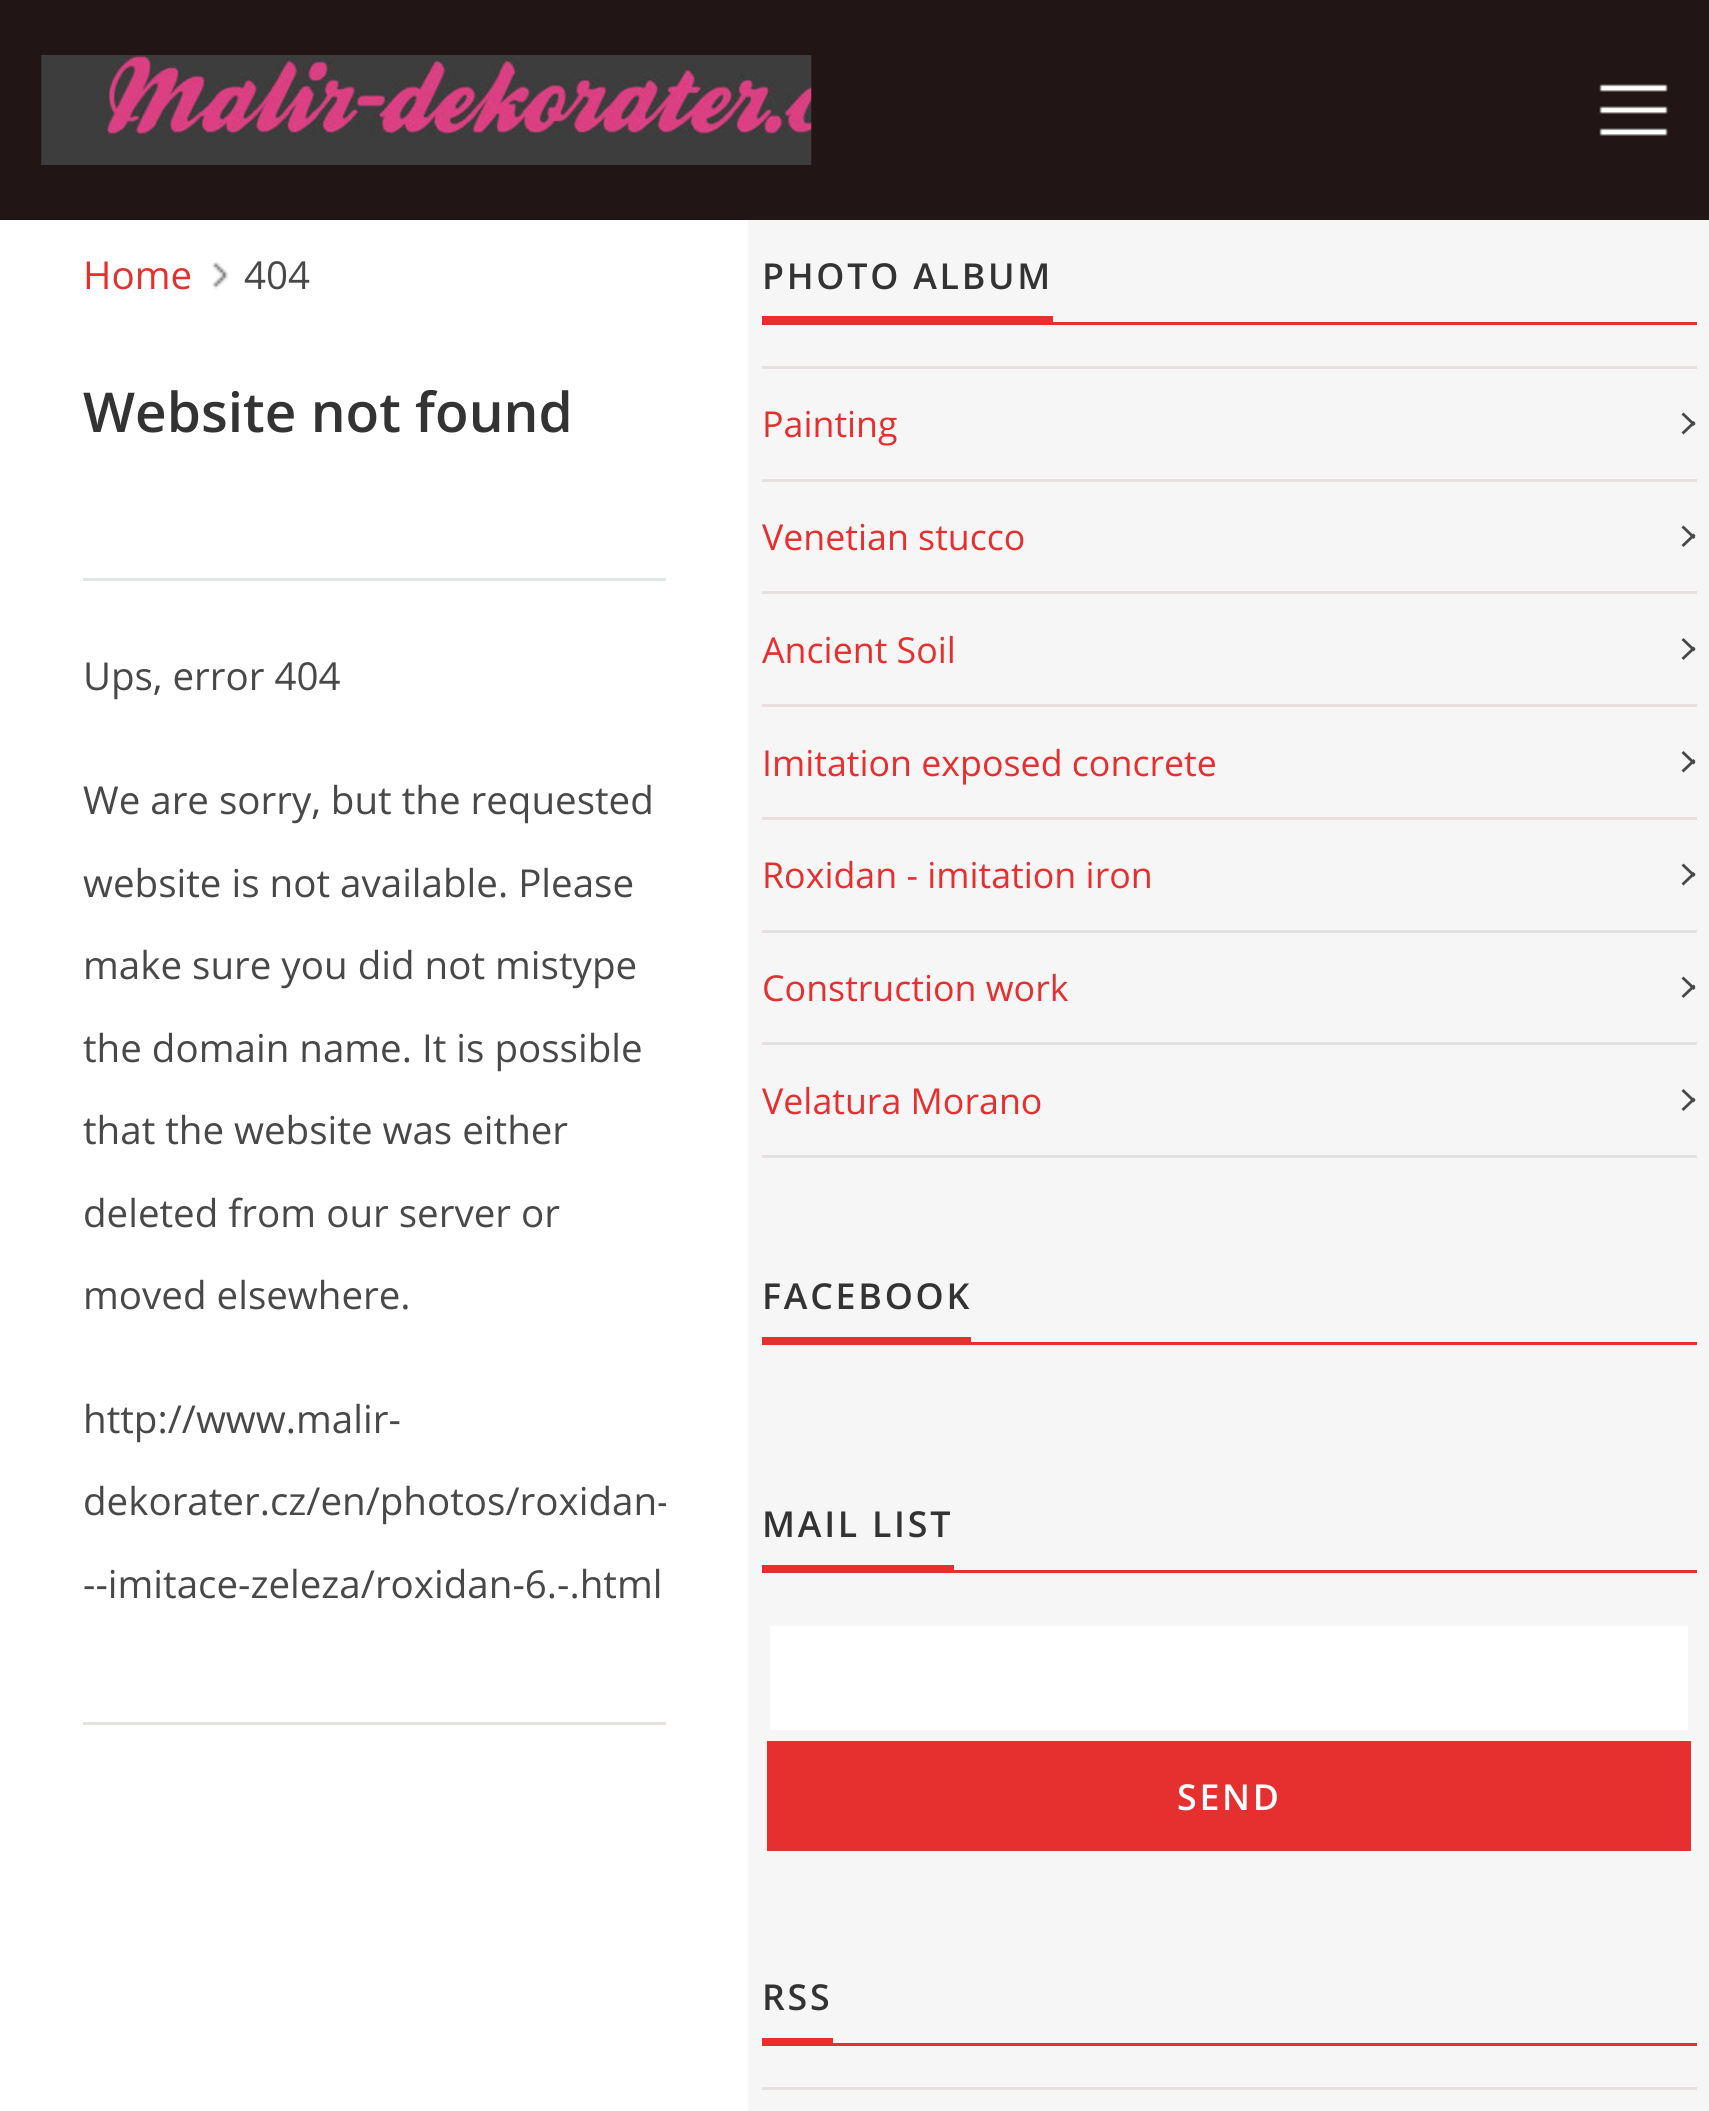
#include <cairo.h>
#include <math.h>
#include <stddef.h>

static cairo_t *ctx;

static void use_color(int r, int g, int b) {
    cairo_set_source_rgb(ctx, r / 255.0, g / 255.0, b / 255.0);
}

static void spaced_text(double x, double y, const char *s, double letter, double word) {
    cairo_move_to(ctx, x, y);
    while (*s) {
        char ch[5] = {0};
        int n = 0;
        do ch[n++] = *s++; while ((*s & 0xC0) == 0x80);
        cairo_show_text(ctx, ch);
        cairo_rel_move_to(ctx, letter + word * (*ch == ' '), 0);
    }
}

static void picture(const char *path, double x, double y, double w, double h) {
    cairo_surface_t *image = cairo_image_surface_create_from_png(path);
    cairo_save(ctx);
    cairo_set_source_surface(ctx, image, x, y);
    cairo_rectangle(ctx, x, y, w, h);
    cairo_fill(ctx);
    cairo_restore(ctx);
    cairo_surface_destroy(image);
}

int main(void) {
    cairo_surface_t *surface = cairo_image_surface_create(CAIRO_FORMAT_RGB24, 1709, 2111);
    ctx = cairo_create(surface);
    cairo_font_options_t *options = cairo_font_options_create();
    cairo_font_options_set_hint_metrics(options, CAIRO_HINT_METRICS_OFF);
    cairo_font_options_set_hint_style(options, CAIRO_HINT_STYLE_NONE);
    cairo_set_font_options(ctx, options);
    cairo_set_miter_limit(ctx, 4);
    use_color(255, 255, 255);
    cairo_paint(ctx);
    use_color(33, 21, 21);
    cairo_rectangle(ctx, 0, 0, 1709, 220);
    cairo_fill(ctx);
    picture("img1.png", 41, 55, 771, 110);
    picture("img2.png", 1599, 84, 69, 52);
    picture("img3.png", 211, 261, 18, 28);
    cairo_select_font_face(ctx, "Open Sans", CAIRO_FONT_SLANT_NORMAL, CAIRO_FONT_WEIGHT_NORMAL);
    cairo_set_font_size(ctx, 38.5);
    use_color(230, 47, 47);
    cairo_move_to(ctx, 83, 289);
    cairo_show_text(ctx, "Home");
    use_color(72, 72, 72);
    cairo_move_to(ctx, 244, 289);
    cairo_show_text(ctx, "404");
    use_color(232, 223, 223);
    cairo_rectangle(ctx, 83, 1722, 583, 3);
    cairo_fill(ctx);
    cairo_select_font_face(ctx, "Open Sans SemiBold", CAIRO_FONT_SLANT_NORMAL, CAIRO_FONT_WEIGHT_NORMAL);
    cairo_set_font_size(ctx, 55);
    use_color(51, 51, 51);
    cairo_move_to(ctx, 83, 432);
    cairo_show_text(ctx, "Website not found");
    use_color(223, 232, 226);
    cairo_rectangle(ctx, 83, 578, 583, 3);
    cairo_fill(ctx);
    cairo_select_font_face(ctx, "Open Sans", CAIRO_FONT_SLANT_NORMAL, CAIRO_FONT_WEIGHT_NORMAL);
    cairo_set_font_size(ctx, 38.5);
    use_color(72, 72, 72);
    cairo_move_to(ctx, 83, 690);
    cairo_show_text(ctx, "Ups, error 404");
    cairo_move_to(ctx, 83, 814);
    cairo_show_text(ctx, "We are sorry, but the requested");
    cairo_move_to(ctx, 83, 897);
    cairo_show_text(ctx, "website is not available. Please");
    cairo_move_to(ctx, 83, 979);
    cairo_show_text(ctx, "make sure you did not mistype");
    cairo_move_to(ctx, 83, 1062);
    cairo_show_text(ctx, "the domain name. It is possible");
    cairo_move_to(ctx, 83, 1144);
    cairo_show_text(ctx, "that the website was either");
    cairo_move_to(ctx, 83, 1227);
    cairo_show_text(ctx, "deleted from our server or");
    cairo_move_to(ctx, 83, 1309);
    cairo_show_text(ctx, "moved elsewhere.");
    cairo_move_to(ctx, 83, 1433);
    cairo_show_text(ctx, "http://www.malir-");
    cairo_save(ctx);
    cairo_rectangle(ctx, 83, 358, 583, 1364);
    cairo_clip(ctx);
    cairo_move_to(ctx, 83, 1515);
    cairo_show_text(ctx, "dekorater.cz/en/photos/roxidan-");
    cairo_restore(ctx);
    cairo_move_to(ctx, 83, 1598);
    cairo_show_text(ctx, "--imitace-zeleza/roxidan-6.-.html");
    use_color(246, 246, 246);
    cairo_rectangle(ctx, 748, 220, 961, 1891);
    cairo_fill(ctx);
    cairo_select_font_face(ctx, "Open Sans SemiBold", CAIRO_FONT_SLANT_NORMAL, CAIRO_FONT_WEIGHT_NORMAL);
    cairo_set_font_size(ctx, 35.75);
    use_color(51, 51, 51);
    spaced_text(762, 289, "PHOTO ALBUM", 2.75, 0);
    use_color(230, 47, 47);
    cairo_rectangle(ctx, 762, 316, 291, 6);
    cairo_fill(ctx);
    cairo_rectangle(ctx, 762, 322, 935, 3);
    cairo_fill(ctx);
    use_color(232, 223, 223);
    cairo_rectangle(ctx, 762, 366, 935, 3);
    cairo_fill(ctx);
    cairo_rectangle(ctx, 762, 479, 935, 3);
    cairo_fill(ctx);
    cairo_select_font_face(ctx, "Open Sans", CAIRO_FONT_SLANT_NORMAL, CAIRO_FONT_WEIGHT_NORMAL);
    use_color(230, 47, 47);
    cairo_move_to(ctx, 762, 437);
    cairo_show_text(ctx, "Painting");
    use_color(72, 72, 72);
    cairo_new_path(ctx);
    cairo_move_to(ctx, 1683.5, 412.5);
    cairo_line_to(ctx, 1695.5, 424);
    cairo_line_to(ctx, 1693.5, 426);
    cairo_line_to(ctx, 1681.5, 414.5);
    cairo_close_path(ctx);
    cairo_fill(ctx);
    cairo_new_path(ctx);
    cairo_move_to(ctx, 1681.5, 432.5);
    cairo_line_to(ctx, 1693.5, 421);
    cairo_line_to(ctx, 1695.5, 423);
    cairo_line_to(ctx, 1683.5, 434.5);
    cairo_close_path(ctx);
    cairo_fill(ctx);
    use_color(232, 223, 223);
    cairo_rectangle(ctx, 762, 591, 935, 3);
    cairo_fill(ctx);
    use_color(230, 47, 47);
    cairo_move_to(ctx, 762, 550);
    cairo_show_text(ctx, "Venetian stucco");
    use_color(72, 72, 72);
    cairo_new_path(ctx);
    cairo_move_to(ctx, 1683.5, 525.5);
    cairo_line_to(ctx, 1695.5, 537);
    cairo_line_to(ctx, 1693.5, 539);
    cairo_line_to(ctx, 1681.5, 527.5);
    cairo_close_path(ctx);
    cairo_fill(ctx);
    cairo_new_path(ctx);
    cairo_move_to(ctx, 1681.5, 545);
    cairo_line_to(ctx, 1693.5, 533.5);
    cairo_line_to(ctx, 1695.5, 535.5);
    cairo_line_to(ctx, 1683.5, 547);
    cairo_close_path(ctx);
    cairo_fill(ctx);
    use_color(232, 223, 223);
    cairo_rectangle(ctx, 762, 704, 935, 3);
    cairo_fill(ctx);
    use_color(230, 47, 47);
    cairo_move_to(ctx, 762, 663);
    cairo_show_text(ctx, "Ancient Soil");
    use_color(72, 72, 72);
    cairo_new_path(ctx);
    cairo_move_to(ctx, 1683.5, 638);
    cairo_line_to(ctx, 1695.5, 649.5);
    cairo_line_to(ctx, 1693.5, 651.5);
    cairo_line_to(ctx, 1681.5, 640);
    cairo_close_path(ctx);
    cairo_fill(ctx);
    cairo_new_path(ctx);
    cairo_move_to(ctx, 1681.5, 658);
    cairo_line_to(ctx, 1693.5, 646.5);
    cairo_line_to(ctx, 1695.5, 648.5);
    cairo_line_to(ctx, 1683.5, 660);
    cairo_close_path(ctx);
    cairo_fill(ctx);
    use_color(232, 223, 223);
    cairo_rectangle(ctx, 762, 817, 935, 3);
    cairo_fill(ctx);
    use_color(230, 47, 47);
    cairo_move_to(ctx, 762, 776);
    cairo_show_text(ctx, "Imitation exposed concrete");
    use_color(72, 72, 72);
    cairo_new_path(ctx);
    cairo_move_to(ctx, 1683.5, 751);
    cairo_line_to(ctx, 1695.5, 762.5);
    cairo_line_to(ctx, 1693.5, 764.5);
    cairo_line_to(ctx, 1681.5, 753);
    cairo_close_path(ctx);
    cairo_fill(ctx);
    cairo_new_path(ctx);
    cairo_move_to(ctx, 1681.5, 770.5);
    cairo_line_to(ctx, 1693.5, 759);
    cairo_line_to(ctx, 1695.5, 761);
    cairo_line_to(ctx, 1683.5, 772.5);
    cairo_close_path(ctx);
    cairo_fill(ctx);
    use_color(232, 223, 223);
    cairo_rectangle(ctx, 762, 930, 935, 3);
    cairo_fill(ctx);
    use_color(230, 47, 47);
    cairo_move_to(ctx, 762, 888);
    cairo_show_text(ctx, "Roxidan - imitation iron");
    use_color(72, 72, 72);
    cairo_new_path(ctx);
    cairo_move_to(ctx, 1683.5, 863.5);
    cairo_line_to(ctx, 1695.5, 875);
    cairo_line_to(ctx, 1693.5, 877);
    cairo_line_to(ctx, 1681.5, 865.5);
    cairo_close_path(ctx);
    cairo_fill(ctx);
    cairo_new_path(ctx);
    cairo_move_to(ctx, 1681.5, 883.5);
    cairo_line_to(ctx, 1693.5, 872);
    cairo_line_to(ctx, 1695.5, 874);
    cairo_line_to(ctx, 1683.5, 885.5);
    cairo_close_path(ctx);
    cairo_fill(ctx);
    use_color(232, 223, 223);
    cairo_rectangle(ctx, 762, 1042, 935, 3);
    cairo_fill(ctx);
    use_color(230, 47, 47);
    cairo_move_to(ctx, 762, 1001);
    cairo_show_text(ctx, "Construction work");
    use_color(72, 72, 72);
    cairo_new_path(ctx);
    cairo_move_to(ctx, 1683.5, 976.5);
    cairo_line_to(ctx, 1695.5, 988);
    cairo_line_to(ctx, 1693.5, 990);
    cairo_line_to(ctx, 1681.5, 978.5);
    cairo_close_path(ctx);
    cairo_fill(ctx);
    cairo_new_path(ctx);
    cairo_move_to(ctx, 1681.5, 996);
    cairo_line_to(ctx, 1693.5, 984.5);
    cairo_line_to(ctx, 1695.5, 986.5);
    cairo_line_to(ctx, 1683.5, 998);
    cairo_close_path(ctx);
    cairo_fill(ctx);
    use_color(232, 223, 223);
    cairo_rectangle(ctx, 762, 1155, 935, 3);
    cairo_fill(ctx);
    use_color(230, 47, 47);
    cairo_move_to(ctx, 762, 1114);
    cairo_show_text(ctx, "Velatura Morano");
    use_color(72, 72, 72);
    cairo_new_path(ctx);
    cairo_move_to(ctx, 1683.5, 1089);
    cairo_line_to(ctx, 1695.5, 1100.5);
    cairo_line_to(ctx, 1693.5, 1102.5);
    cairo_line_to(ctx, 1681.5, 1091);
    cairo_close_path(ctx);
    cairo_fill(ctx);
    cairo_new_path(ctx);
    cairo_move_to(ctx, 1681.5, 1109);
    cairo_line_to(ctx, 1693.5, 1097.5);
    cairo_line_to(ctx, 1695.5, 1099.5);
    cairo_line_to(ctx, 1683.5, 1111);
    cairo_close_path(ctx);
    cairo_fill(ctx);
    cairo_select_font_face(ctx, "Open Sans SemiBold", CAIRO_FONT_SLANT_NORMAL, CAIRO_FONT_WEIGHT_NORMAL);
    use_color(51, 51, 51);
    spaced_text(762, 1309, "FACEBOOK", 2.75, 0);
    use_color(230, 47, 47);
    cairo_rectangle(ctx, 762, 1337, 209, 5);
    cairo_fill(ctx);
    cairo_rectangle(ctx, 762, 1342, 935, 3);
    cairo_fill(ctx);
    use_color(51, 51, 51);
    spaced_text(762, 1537, "MAIL LIST", 2.75, 0);
    use_color(230, 47, 47);
    cairo_rectangle(ctx, 762, 1565, 192, 5);
    cairo_fill(ctx);
    cairo_rectangle(ctx, 762, 1570, 935, 3);
    cairo_fill(ctx);
    use_color(255, 255, 255);
    cairo_rectangle(ctx, 770, 1626, 918, 104);
    cairo_fill(ctx);
    use_color(230, 47, 47);
    cairo_rectangle(ctx, 767, 1741, 924, 110);
    cairo_fill(ctx);
    use_color(255, 255, 255);
    spaced_text(1177, 1810, "SEND", 2.75, 0);
    use_color(51, 51, 51);
    spaced_text(762, 2010, "RSS", 2.75, 0);
    use_color(230, 47, 47);
    cairo_rectangle(ctx, 762, 2038, 71, 5);
    cairo_fill(ctx);
    cairo_rectangle(ctx, 762, 2043, 935, 3);
    cairo_fill(ctx);
    use_color(232, 223, 223);
    cairo_rectangle(ctx, 762, 2087, 935, 3);
    cairo_fill(ctx);
    cairo_surface_write_to_png(surface, "result.png");
    cairo_font_options_destroy(options);
    cairo_destroy(ctx);
    cairo_surface_destroy(surface);
    return 0;
}
